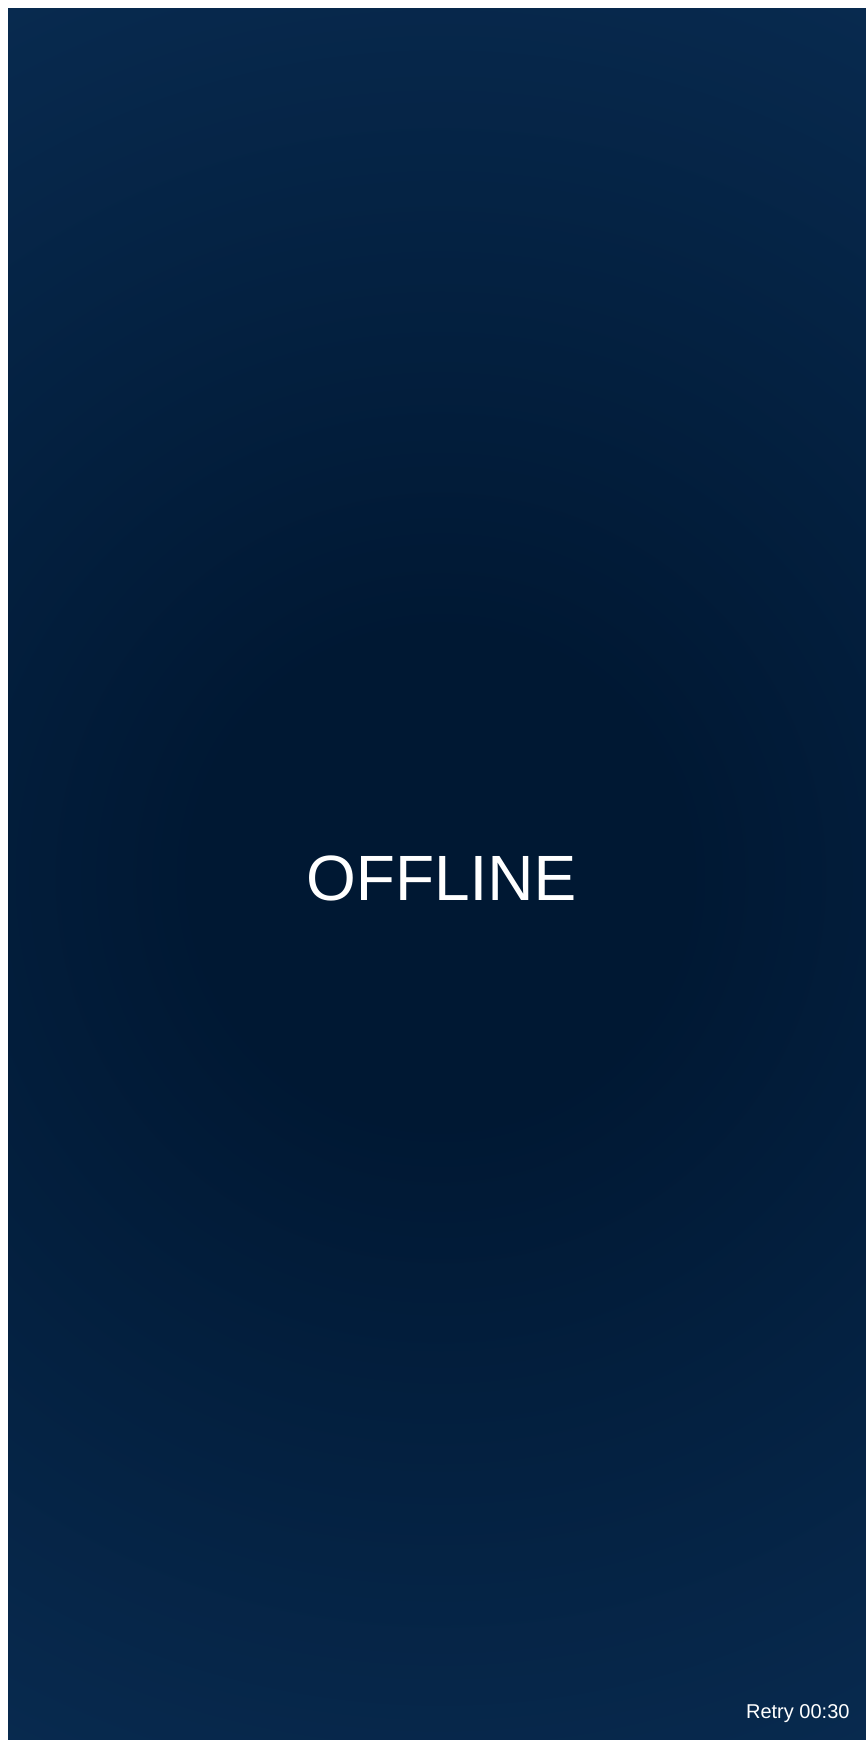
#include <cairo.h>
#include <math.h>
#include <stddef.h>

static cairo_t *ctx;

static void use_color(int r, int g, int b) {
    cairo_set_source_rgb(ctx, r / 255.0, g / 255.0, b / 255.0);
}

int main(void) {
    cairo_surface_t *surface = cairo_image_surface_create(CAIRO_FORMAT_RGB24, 866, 1740);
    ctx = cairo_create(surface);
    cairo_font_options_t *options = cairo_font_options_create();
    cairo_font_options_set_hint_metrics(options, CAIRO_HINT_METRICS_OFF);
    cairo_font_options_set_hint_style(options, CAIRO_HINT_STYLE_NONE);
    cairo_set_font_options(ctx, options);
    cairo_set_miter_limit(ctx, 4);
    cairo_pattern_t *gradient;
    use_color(255, 255, 255);
    cairo_paint(ctx);
    gradient = cairo_pattern_create_radial(441, 878, 0, 441, 878, 972);
    cairo_pattern_add_color_stop_rgba(gradient, 0.25, 0, 0.094, 0.2, 1);
    cairo_pattern_add_color_stop_rgba(gradient, 1, 0.031, 0.165, 0.31, 1);
    cairo_set_source(ctx, gradient);
    cairo_pattern_destroy(gradient);
    cairo_rectangle(ctx, 8, 8, 858, 1732);
    cairo_fill(ctx);
    cairo_select_font_face(ctx, "Liberation Sans", CAIRO_FONT_SLANT_NORMAL, CAIRO_FONT_WEIGHT_NORMAL);
    cairo_set_font_size(ctx, 64);
    use_color(255, 255, 255);
    cairo_move_to(ctx, 306, 900);
    cairo_show_text(ctx, "OFFLINE");
    cairo_set_font_size(ctx, 20);
    cairo_move_to(ctx, 746, 1718);
    cairo_show_text(ctx, "Retry 00:30");
    cairo_surface_write_to_png(surface, "result.png");
    cairo_font_options_destroy(options);
    cairo_destroy(ctx);
    cairo_surface_destroy(surface);
    return 0;
}
